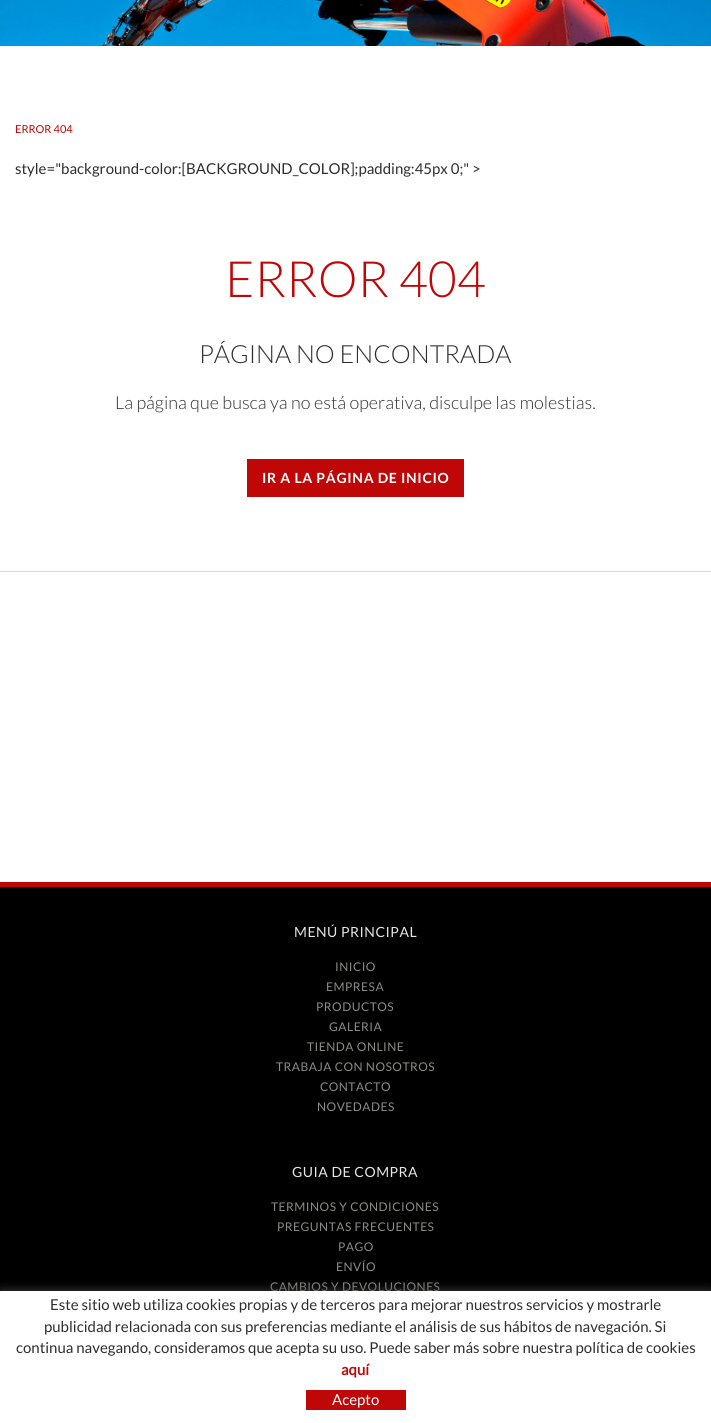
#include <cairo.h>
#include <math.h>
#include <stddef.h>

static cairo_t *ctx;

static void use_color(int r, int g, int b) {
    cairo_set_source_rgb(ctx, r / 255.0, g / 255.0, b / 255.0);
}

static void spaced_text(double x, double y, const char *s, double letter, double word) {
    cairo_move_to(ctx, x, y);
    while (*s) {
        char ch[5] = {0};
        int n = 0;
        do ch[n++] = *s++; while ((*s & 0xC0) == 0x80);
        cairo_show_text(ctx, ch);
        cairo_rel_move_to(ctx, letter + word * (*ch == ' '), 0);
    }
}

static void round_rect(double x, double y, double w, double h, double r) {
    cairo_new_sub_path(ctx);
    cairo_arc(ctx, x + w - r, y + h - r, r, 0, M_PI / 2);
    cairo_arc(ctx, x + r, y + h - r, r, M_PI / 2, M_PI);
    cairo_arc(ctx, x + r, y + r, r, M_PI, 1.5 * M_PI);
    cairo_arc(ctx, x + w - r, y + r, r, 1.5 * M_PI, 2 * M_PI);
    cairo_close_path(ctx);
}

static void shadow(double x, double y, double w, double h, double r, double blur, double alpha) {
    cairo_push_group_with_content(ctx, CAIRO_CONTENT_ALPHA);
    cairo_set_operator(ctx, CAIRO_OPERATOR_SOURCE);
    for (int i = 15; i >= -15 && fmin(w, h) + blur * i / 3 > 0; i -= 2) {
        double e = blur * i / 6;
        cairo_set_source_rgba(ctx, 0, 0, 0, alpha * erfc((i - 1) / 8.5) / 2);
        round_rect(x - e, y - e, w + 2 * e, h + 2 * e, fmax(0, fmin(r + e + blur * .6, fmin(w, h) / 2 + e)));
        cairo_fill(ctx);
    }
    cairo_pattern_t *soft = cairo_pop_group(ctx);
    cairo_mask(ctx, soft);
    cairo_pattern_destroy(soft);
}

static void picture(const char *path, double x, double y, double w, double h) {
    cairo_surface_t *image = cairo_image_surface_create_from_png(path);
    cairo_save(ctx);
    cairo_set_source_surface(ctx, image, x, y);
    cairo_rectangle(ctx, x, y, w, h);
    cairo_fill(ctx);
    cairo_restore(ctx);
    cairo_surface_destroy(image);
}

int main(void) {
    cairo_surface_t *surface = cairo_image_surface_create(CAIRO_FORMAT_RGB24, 711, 1423);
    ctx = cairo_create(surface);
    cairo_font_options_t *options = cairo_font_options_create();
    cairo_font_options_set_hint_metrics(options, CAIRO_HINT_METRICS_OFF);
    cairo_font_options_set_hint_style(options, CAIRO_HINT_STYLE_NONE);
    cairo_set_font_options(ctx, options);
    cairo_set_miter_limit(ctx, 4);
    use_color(255, 255, 255);
    cairo_paint(ctx);
    picture("img1.png", 0, 0, 711, 46);
    cairo_select_font_face(ctx, "Lato", CAIRO_FONT_SLANT_NORMAL, CAIRO_FONT_WEIGHT_NORMAL);
    cairo_set_font_size(ctx, 11);
    use_color(191, 7, 7);
    cairo_move_to(ctx, 15, 133);
    cairo_show_text(ctx, "ERROR 404");
    cairo_set_font_size(ctx, 15);
    use_color(45, 46, 46);
    cairo_move_to(ctx, 15, 174);
    cairo_show_text(ctx, "style=\"background-color:[BACKGROUND_COLOR];padding:45px 0;\" >");
    cairo_select_font_face(ctx, "Lato Light", CAIRO_FONT_SLANT_NORMAL, CAIRO_FONT_WEIGHT_NORMAL);
    cairo_set_font_size(ctx, 50);
    use_color(191, 7, 7);
    cairo_move_to(ctx, 225, 297);
    cairo_show_text(ctx, "ERROR 404");
    cairo_set_font_size(ctx, 25);
    use_color(45, 46, 46);
    cairo_move_to(ctx, 199, 363);
    cairo_show_text(ctx, "PÁGINA NO ENCONTRADA");
    cairo_set_font_size(ctx, 18);
    cairo_move_to(ctx, 115, 409);
    cairo_show_text(ctx, "La página que busca ya no está operativa, disculpe las molestias.");
    use_color(191, 7, 7);
    cairo_rectangle(ctx, 247, 459, 217, 38);
    cairo_fill(ctx);
    cairo_select_font_face(ctx, "Lato", CAIRO_FONT_SLANT_NORMAL, CAIRO_FONT_WEIGHT_BOLD);
    cairo_set_font_size(ctx, 14);
    use_color(255, 255, 255);
    spaced_text(262, 483, "IR A LA PÁGINA DE INICIO", 0.7, 0);
    use_color(216, 216, 216);
    cairo_rectangle(ctx, 0, 571, 711, 1);
    cairo_fill(ctx);
    use_color(0, 0, 0);
    cairo_rectangle(ctx, 0, 887, 711, 404);
    cairo_fill(ctx);
    use_color(191, 7, 7);
    cairo_rectangle(ctx, 0, 882, 711, 5);
    cairo_fill(ctx);
    cairo_select_font_face(ctx, "Lato", CAIRO_FONT_SLANT_NORMAL, CAIRO_FONT_WEIGHT_NORMAL);
    use_color(229, 229, 229);
    spaced_text(294, 937, "MENÚ PRINCIPAL", 0.5, 0);
    cairo_set_font_size(ctx, 12);
    use_color(140, 139, 136);
    spaced_text(335, 971, "INICIO", 0.5, 0);
    spaced_text(326, 991, "EMPRESA", 0.5, 0);
    spaced_text(316, 1011, "PRODUCTOS", 0.5, 0);
    spaced_text(329, 1031, "GALERIA", 0.5, 0);
    spaced_text(307, 1051, "TIENDA ONLINE", 0.5, 0);
    spaced_text(276, 1071, "TRABAJA CON NOSOTROS", 0.5, 0);
    spaced_text(320, 1091, "CONTACTO", 0.5, 0);
    spaced_text(317, 1111, "NOVEDADES", 0.5, 0);
    cairo_set_font_size(ctx, 14);
    use_color(229, 229, 229);
    spaced_text(292, 1177, "GUIA DE COMPRA", 0.5, 0);
    cairo_set_font_size(ctx, 12);
    use_color(140, 139, 136);
    spaced_text(271, 1211, "TERMINOS Y CONDICIONES", 0.5, 0);
    spaced_text(277, 1231, "PREGUNTAS FRECUENTES", 0.5, 0);
    spaced_text(338, 1251, "PAGO", 0.5, 0);
    spaced_text(336, 1271, "ENVÍO", 0.5, 0);
    spaced_text(270, 1291, "CAMBIOS Y DEVOLUCIONES", 0.5, 0);
    use_color(68, 68, 68);
    shadow(0, 1291, 711, 132, 0, 5, 1);
    use_color(255, 255, 255);
    cairo_rectangle(ctx, 0, 1291, 711, 132);
    cairo_fill(ctx);
    cairo_set_font_size(ctx, 15);
    use_color(45, 46, 46);
    cairo_move_to(ctx, 50, 1310);
    cairo_show_text(ctx, "Este sitio web utiliza cookies propias y de terceros para mejorar nuestros servicios y mostrarle");
    cairo_move_to(ctx, 44, 1332);
    cairo_show_text(ctx, "publicidad relacionada con sus preferencias mediante el análisis de sus hábitos de navegación. Si");
    cairo_move_to(ctx, 16, 1353);
    cairo_show_text(ctx, "continua navegando, consideramos que acepta su uso. Puede saber más sobre nuestra política de cookies");
    cairo_select_font_face(ctx, "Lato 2", CAIRO_FONT_SLANT_NORMAL, CAIRO_FONT_WEIGHT_BOLD);
    use_color(191, 7, 7);
    cairo_move_to(ctx, 341, 1375);
    cairo_show_text(ctx, "aquí");
    cairo_rectangle(ctx, 306, 1390, 100, 20);
    cairo_fill(ctx);
    cairo_select_font_face(ctx, "Lato", CAIRO_FONT_SLANT_NORMAL, CAIRO_FONT_WEIGHT_NORMAL);
    use_color(255, 255, 255);
    cairo_move_to(ctx, 332, 1405);
    cairo_show_text(ctx, "Acepto");
    cairo_surface_write_to_png(surface, "result.png");
    cairo_font_options_destroy(options);
    cairo_destroy(ctx);
    cairo_surface_destroy(surface);
    return 0;
}
